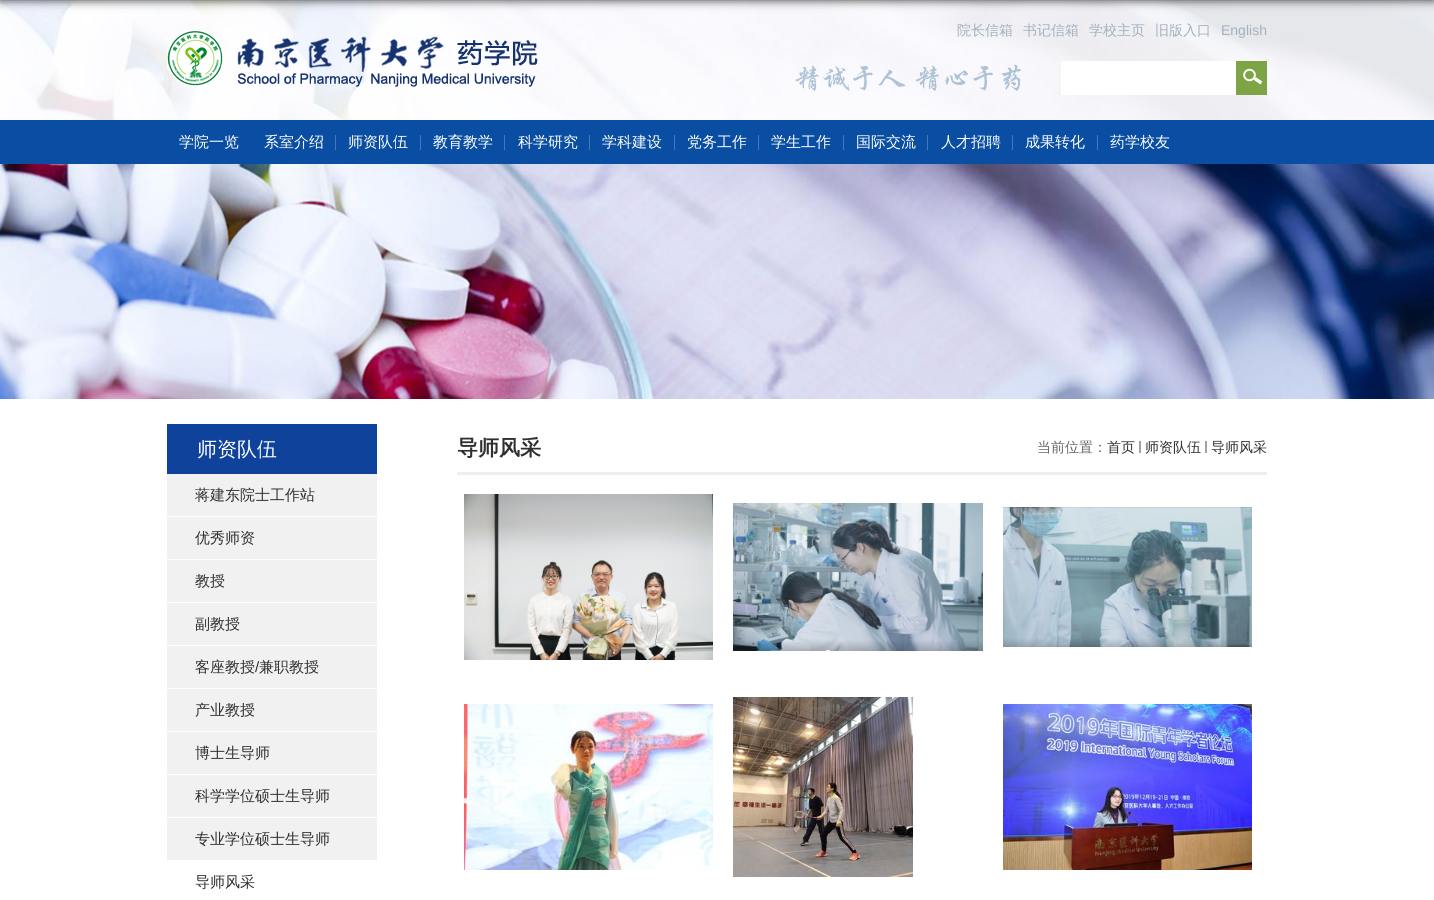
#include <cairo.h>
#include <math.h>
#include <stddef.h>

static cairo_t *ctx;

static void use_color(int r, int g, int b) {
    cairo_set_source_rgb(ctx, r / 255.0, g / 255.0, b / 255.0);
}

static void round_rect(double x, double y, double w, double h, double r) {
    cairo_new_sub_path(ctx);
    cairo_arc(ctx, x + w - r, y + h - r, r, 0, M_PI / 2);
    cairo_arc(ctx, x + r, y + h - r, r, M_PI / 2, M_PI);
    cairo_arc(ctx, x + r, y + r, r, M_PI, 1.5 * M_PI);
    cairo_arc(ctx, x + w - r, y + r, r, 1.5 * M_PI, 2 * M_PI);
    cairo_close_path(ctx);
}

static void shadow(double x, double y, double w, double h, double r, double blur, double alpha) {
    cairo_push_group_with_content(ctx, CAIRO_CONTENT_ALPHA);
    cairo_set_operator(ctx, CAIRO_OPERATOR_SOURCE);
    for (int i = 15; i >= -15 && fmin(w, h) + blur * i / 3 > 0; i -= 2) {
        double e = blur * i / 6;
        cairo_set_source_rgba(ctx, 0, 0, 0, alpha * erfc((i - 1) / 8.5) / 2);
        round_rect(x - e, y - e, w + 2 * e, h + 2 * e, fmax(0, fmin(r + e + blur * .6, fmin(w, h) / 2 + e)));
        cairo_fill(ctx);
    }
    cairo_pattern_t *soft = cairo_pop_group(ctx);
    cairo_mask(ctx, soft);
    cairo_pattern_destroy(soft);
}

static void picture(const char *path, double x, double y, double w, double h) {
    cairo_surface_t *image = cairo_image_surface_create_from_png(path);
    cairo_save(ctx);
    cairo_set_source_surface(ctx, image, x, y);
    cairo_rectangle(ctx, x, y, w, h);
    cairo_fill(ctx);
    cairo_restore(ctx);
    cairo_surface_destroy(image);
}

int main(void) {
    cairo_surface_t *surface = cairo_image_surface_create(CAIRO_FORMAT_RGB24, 1434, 900);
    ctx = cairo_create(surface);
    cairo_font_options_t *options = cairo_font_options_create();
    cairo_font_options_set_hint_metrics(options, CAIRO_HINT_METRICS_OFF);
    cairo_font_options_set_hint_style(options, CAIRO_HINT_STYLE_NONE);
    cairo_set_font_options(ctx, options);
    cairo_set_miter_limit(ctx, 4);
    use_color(255, 255, 255);
    cairo_paint(ctx);
    picture("img1.png", 0, 0, 1434, 120);
    use_color(0, 0, 0);
    shadow(0, -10, 1434, 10, 0, 5, 0.8);
    picture("img2.png", 795, 64, 226, 27);
    picture("img3.png", 167, 30, 371, 57);
    cairo_select_font_face(ctx, "WenQuanYi Zen Hei Medium", CAIRO_FONT_SLANT_NORMAL, CAIRO_FONT_WEIGHT_NORMAL);
    cairo_set_font_size(ctx, 14);
    use_color(162, 177, 189);
    cairo_move_to(ctx, 957, 35);
    cairo_show_text(ctx, "院长信箱");
    cairo_move_to(ctx, 1023, 35);
    cairo_show_text(ctx, "书记信箱");
    cairo_move_to(ctx, 1089, 35);
    cairo_show_text(ctx, "学校主页");
    cairo_move_to(ctx, 1155, 35);
    cairo_show_text(ctx, "旧版入口");
    cairo_select_font_face(ctx, "Liberation Sans", CAIRO_FONT_SLANT_NORMAL, CAIRO_FONT_WEIGHT_NORMAL);
    cairo_move_to(ctx, 1221, 35);
    cairo_show_text(ctx, "English");
    use_color(245, 245, 245);
    cairo_rectangle(ctx, 1057, 61, 4, 34);
    cairo_fill(ctx);
    use_color(255, 255, 255);
    cairo_rectangle(ctx, 1061, 61, 175, 34);
    cairo_fill(ctx);
    picture("img4.png", 1236, 61, 31, 34);
    use_color(9, 78, 162);
    cairo_rectangle(ctx, 0, 120, 1434, 44);
    cairo_fill(ctx);
    cairo_select_font_face(ctx, "WenQuanYi Zen Hei Medium", CAIRO_FONT_SLANT_NORMAL, CAIRO_FONT_WEIGHT_NORMAL);
    cairo_set_font_size(ctx, 15);
    use_color(255, 255, 255);
    cairo_move_to(ctx, 179, 147);
    cairo_show_text(ctx, "学院一览");
    use_color(68, 120, 184);
    cairo_rectangle(ctx, 335, 135, 1, 15);
    cairo_fill(ctx);
    use_color(255, 255, 255);
    cairo_move_to(ctx, 264, 147);
    cairo_show_text(ctx, "系室介绍");
    use_color(68, 120, 184);
    cairo_rectangle(ctx, 420, 135, 1, 15);
    cairo_fill(ctx);
    use_color(255, 255, 255);
    cairo_move_to(ctx, 348, 147);
    cairo_show_text(ctx, "师资队伍");
    use_color(68, 120, 184);
    cairo_rectangle(ctx, 504, 135, 1, 15);
    cairo_fill(ctx);
    use_color(255, 255, 255);
    cairo_move_to(ctx, 433, 147);
    cairo_show_text(ctx, "教育教学");
    use_color(68, 120, 184);
    cairo_rectangle(ctx, 589, 135, 1, 15);
    cairo_fill(ctx);
    use_color(255, 255, 255);
    cairo_move_to(ctx, 518, 147);
    cairo_show_text(ctx, "科学研究");
    use_color(68, 120, 184);
    cairo_rectangle(ctx, 674, 135, 1, 15);
    cairo_fill(ctx);
    use_color(255, 255, 255);
    cairo_move_to(ctx, 602, 147);
    cairo_show_text(ctx, "学科建设");
    use_color(68, 120, 184);
    cairo_rectangle(ctx, 758, 135, 1, 15);
    cairo_fill(ctx);
    use_color(255, 255, 255);
    cairo_move_to(ctx, 687, 147);
    cairo_show_text(ctx, "党务工作");
    use_color(68, 120, 184);
    cairo_rectangle(ctx, 843, 135, 1, 15);
    cairo_fill(ctx);
    use_color(255, 255, 255);
    cairo_move_to(ctx, 771, 147);
    cairo_show_text(ctx, "学生工作");
    use_color(68, 120, 184);
    cairo_rectangle(ctx, 927, 135, 1, 15);
    cairo_fill(ctx);
    use_color(255, 255, 255);
    cairo_move_to(ctx, 856, 147);
    cairo_show_text(ctx, "国际交流");
    use_color(68, 120, 184);
    cairo_rectangle(ctx, 1012, 135, 1, 15);
    cairo_fill(ctx);
    use_color(255, 255, 255);
    cairo_move_to(ctx, 941, 147);
    cairo_show_text(ctx, "人才招聘");
    use_color(68, 120, 184);
    cairo_rectangle(ctx, 1097, 135, 1, 15);
    cairo_fill(ctx);
    use_color(255, 255, 255);
    cairo_move_to(ctx, 1025, 147);
    cairo_show_text(ctx, "成果转化");
    cairo_move_to(ctx, 1110, 147);
    cairo_show_text(ctx, "药学校友");
    picture("img5.png", 0, 164, 1434, 235);
    use_color(15, 66, 155);
    cairo_rectangle(ctx, 167, 424, 210, 50);
    cairo_fill(ctx);
    cairo_set_font_size(ctx, 20);
    use_color(255, 255, 255);
    cairo_move_to(ctx, 197, 456);
    cairo_show_text(ctx, "师资队伍");
    use_color(241, 241, 241);
    cairo_rectangle(ctx, 167, 474, 210, 42);
    cairo_fill(ctx);
    cairo_set_font_size(ctx, 15);
    use_color(47, 47, 47);
    cairo_move_to(ctx, 195, 500);
    cairo_show_text(ctx, "蒋建东院士工作站");
    use_color(241, 241, 241);
    cairo_rectangle(ctx, 167, 517, 210, 42);
    cairo_fill(ctx);
    use_color(47, 47, 47);
    cairo_move_to(ctx, 195, 543);
    cairo_show_text(ctx, "优秀师资");
    use_color(241, 241, 241);
    cairo_rectangle(ctx, 167, 560, 210, 42);
    cairo_fill(ctx);
    use_color(47, 47, 47);
    cairo_move_to(ctx, 195, 586);
    cairo_show_text(ctx, "教授");
    use_color(241, 241, 241);
    cairo_rectangle(ctx, 167, 603, 210, 42);
    cairo_fill(ctx);
    use_color(47, 47, 47);
    cairo_move_to(ctx, 195, 629);
    cairo_show_text(ctx, "副教授");
    use_color(241, 241, 241);
    cairo_rectangle(ctx, 167, 646, 210, 42);
    cairo_fill(ctx);
    use_color(47, 47, 47);
    cairo_move_to(ctx, 195, 672);
    cairo_show_text(ctx, "客座教授");
    cairo_select_font_face(ctx, "Liberation Sans", CAIRO_FONT_SLANT_NORMAL, CAIRO_FONT_WEIGHT_NORMAL);
    cairo_move_to(ctx, 255, 672);
    cairo_show_text(ctx, "/");
    cairo_select_font_face(ctx, "WenQuanYi Zen Hei Medium", CAIRO_FONT_SLANT_NORMAL, CAIRO_FONT_WEIGHT_NORMAL);
    cairo_move_to(ctx, 259, 672);
    cairo_show_text(ctx, "兼职教授");
    use_color(241, 241, 241);
    cairo_rectangle(ctx, 167, 689, 210, 42);
    cairo_fill(ctx);
    use_color(47, 47, 47);
    cairo_move_to(ctx, 195, 715);
    cairo_show_text(ctx, "产业教授");
    use_color(241, 241, 241);
    cairo_rectangle(ctx, 167, 732, 210, 42);
    cairo_fill(ctx);
    use_color(47, 47, 47);
    cairo_move_to(ctx, 195, 758);
    cairo_show_text(ctx, "博士生导师");
    use_color(241, 241, 241);
    cairo_rectangle(ctx, 167, 775, 210, 42);
    cairo_fill(ctx);
    use_color(47, 47, 47);
    cairo_move_to(ctx, 195, 801);
    cairo_show_text(ctx, "科学学位硕士生导师");
    use_color(241, 241, 241);
    cairo_rectangle(ctx, 167, 818, 210, 42);
    cairo_fill(ctx);
    use_color(47, 47, 47);
    cairo_move_to(ctx, 195, 844);
    cairo_show_text(ctx, "专业学位硕士生导师");
    cairo_move_to(ctx, 195, 887);
    cairo_show_text(ctx, "导师风采");
    use_color(238, 238, 238);
    cairo_rectangle(ctx, 457, 472, 810, 3);
    cairo_fill(ctx);
    cairo_select_font_face(ctx, "WenQuanYi Zen Hei", CAIRO_FONT_SLANT_NORMAL, CAIRO_FONT_WEIGHT_BOLD);
    cairo_set_font_size(ctx, 21);
    use_color(47, 47, 47);
    cairo_move_to(ctx, 457, 455);
    cairo_show_text(ctx, "导师风采");
    cairo_select_font_face(ctx, "WenQuanYi Zen Hei Medium", CAIRO_FONT_SLANT_NORMAL, CAIRO_FONT_WEIGHT_NORMAL);
    cairo_set_font_size(ctx, 14);
    use_color(102, 102, 102);
    cairo_move_to(ctx, 1037, 452);
    cairo_show_text(ctx, "当前位置：");
    use_color(47, 47, 47);
    cairo_move_to(ctx, 1107, 452);
    cairo_show_text(ctx, "首页");
    use_color(162, 162, 162);
    cairo_rectangle(ctx, 1139, 441, 2, 12);
    cairo_fill(ctx);
    use_color(47, 47, 47);
    cairo_move_to(ctx, 1145, 452);
    cairo_show_text(ctx, "师资队伍");
    use_color(162, 162, 162);
    cairo_rectangle(ctx, 1205, 441, 2, 12);
    cairo_fill(ctx);
    use_color(47, 47, 47);
    cairo_move_to(ctx, 1211, 452);
    cairo_show_text(ctx, "导师风采");
    picture("img6.png", 464, 494, 249, 166);
    picture("img7.png", 733, 503, 250, 148);
    picture("img8.png", 1003, 507, 249, 140);
    picture("img9.png", 464, 704, 249, 166);
    picture("img10.png", 733, 697, 180, 180);
    picture("img11.png", 1003, 704, 249, 166);
    cairo_surface_write_to_png(surface, "result.png");
    cairo_font_options_destroy(options);
    cairo_destroy(ctx);
    cairo_surface_destroy(surface);
    return 0;
}
